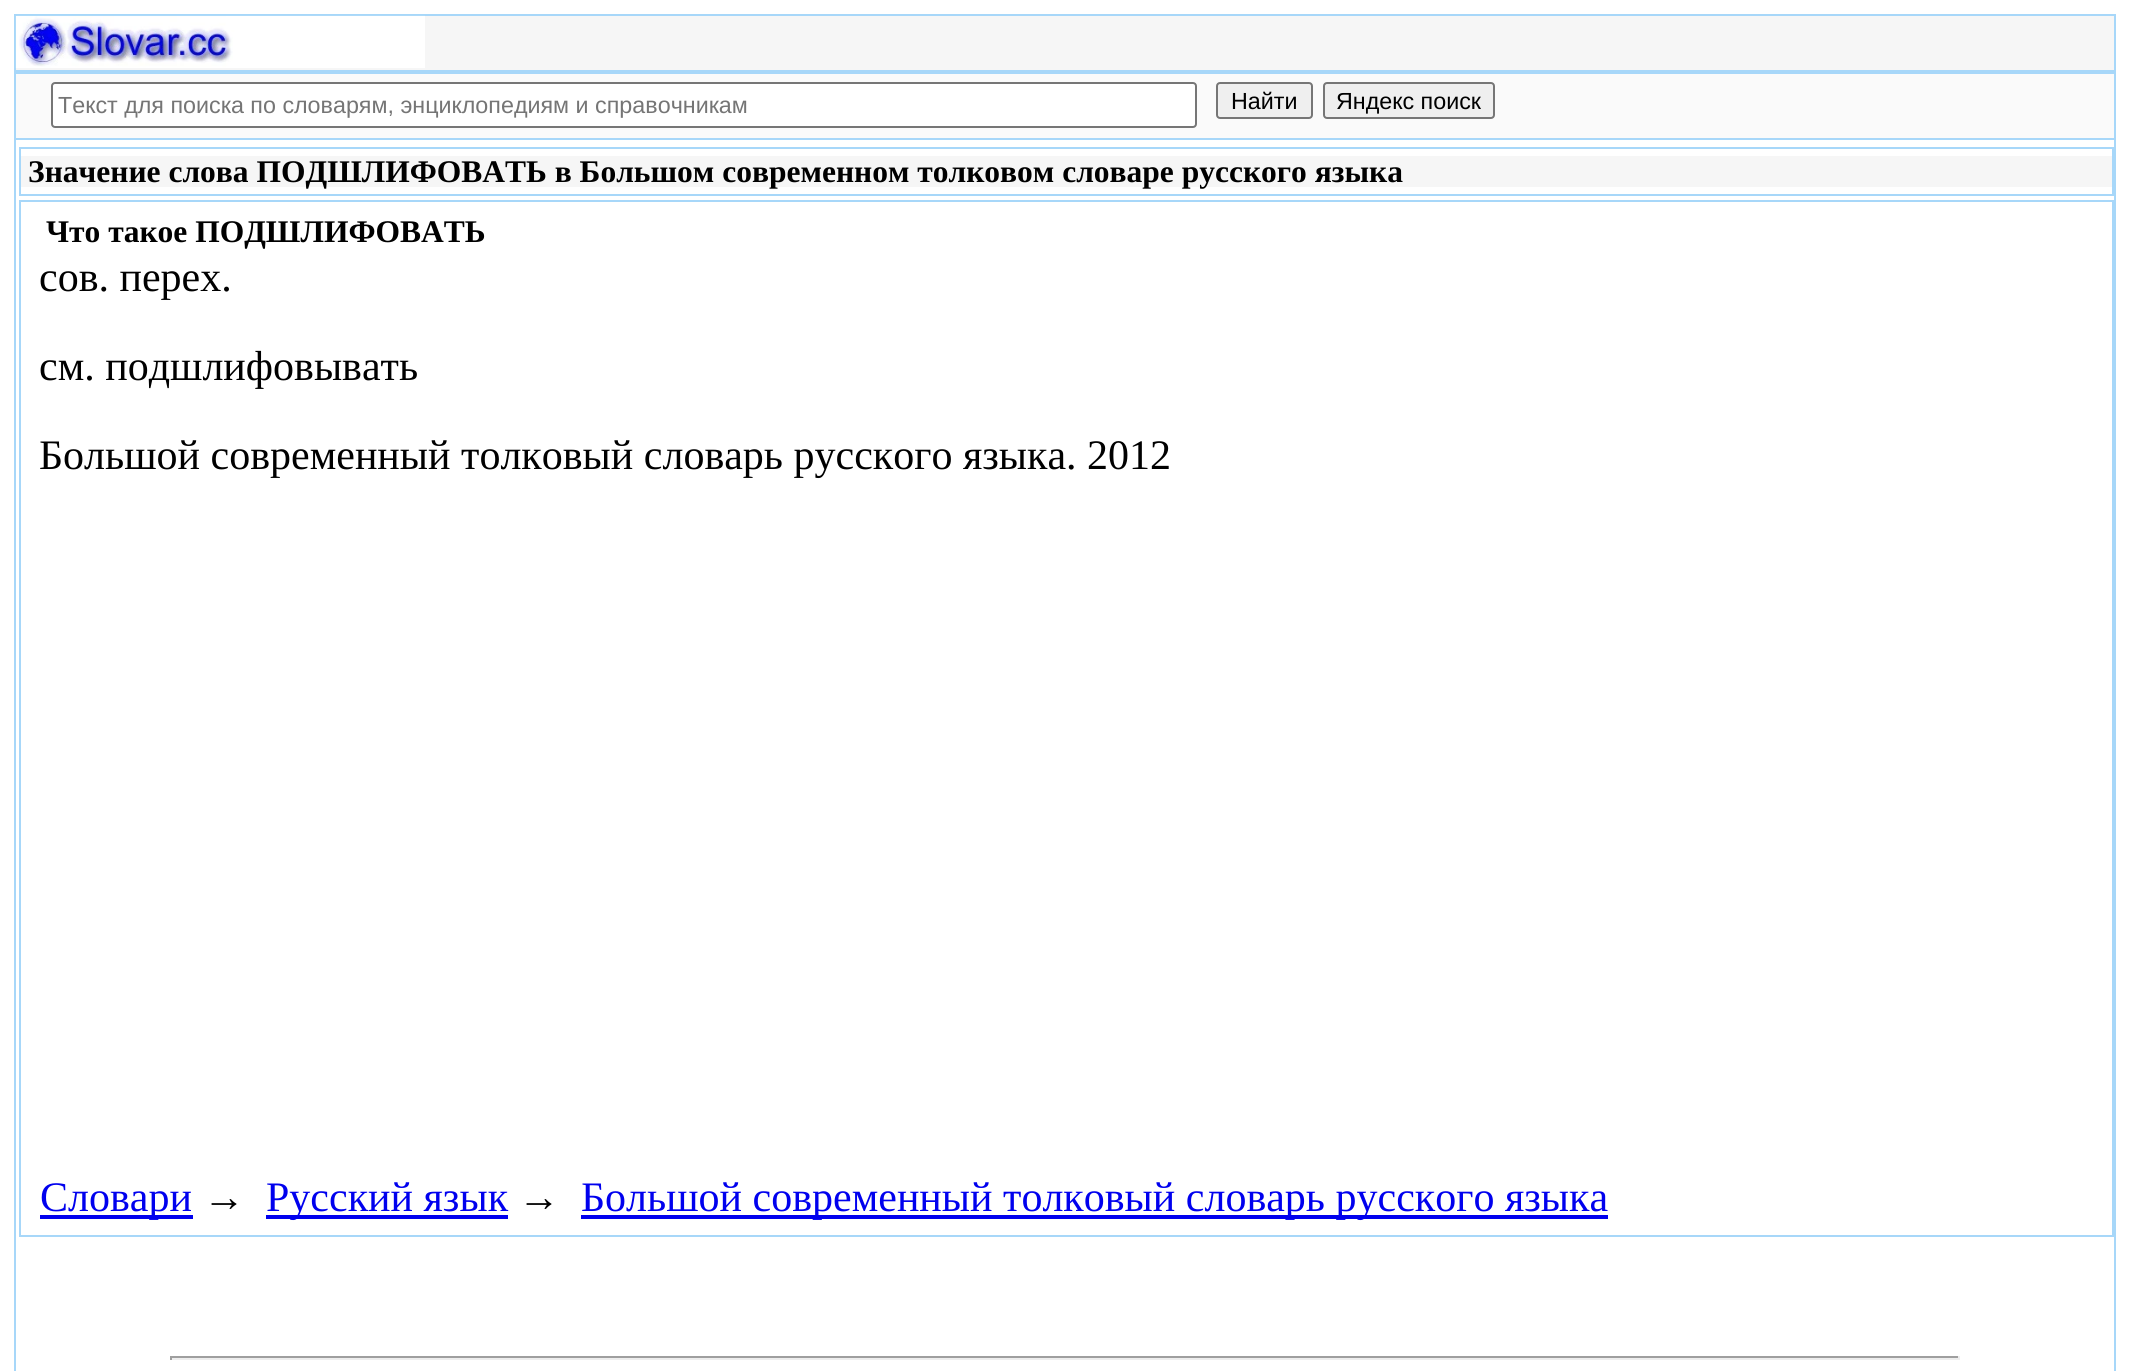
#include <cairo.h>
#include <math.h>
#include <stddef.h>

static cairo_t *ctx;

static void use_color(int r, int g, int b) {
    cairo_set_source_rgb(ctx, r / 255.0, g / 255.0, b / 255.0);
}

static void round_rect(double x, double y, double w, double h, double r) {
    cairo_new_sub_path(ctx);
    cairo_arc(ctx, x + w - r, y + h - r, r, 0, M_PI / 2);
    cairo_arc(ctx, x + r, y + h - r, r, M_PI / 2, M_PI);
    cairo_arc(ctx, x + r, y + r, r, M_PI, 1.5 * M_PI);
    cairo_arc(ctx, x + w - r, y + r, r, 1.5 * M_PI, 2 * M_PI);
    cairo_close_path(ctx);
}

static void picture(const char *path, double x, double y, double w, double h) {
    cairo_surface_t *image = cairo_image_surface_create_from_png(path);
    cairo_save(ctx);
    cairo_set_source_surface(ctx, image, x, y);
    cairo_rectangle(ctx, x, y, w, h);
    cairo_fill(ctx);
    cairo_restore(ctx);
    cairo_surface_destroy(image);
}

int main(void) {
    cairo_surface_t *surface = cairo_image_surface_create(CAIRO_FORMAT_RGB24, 2129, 1371);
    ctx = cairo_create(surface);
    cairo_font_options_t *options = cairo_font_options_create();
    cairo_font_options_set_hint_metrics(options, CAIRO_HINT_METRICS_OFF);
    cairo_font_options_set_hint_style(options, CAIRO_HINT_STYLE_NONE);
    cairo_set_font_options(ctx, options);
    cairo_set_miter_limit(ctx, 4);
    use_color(255, 255, 255);
    cairo_paint(ctx);
    use_color(167, 215, 249);
    cairo_rectangle(ctx, 2114, 14, 2, 1357);
    cairo_fill(ctx);
    cairo_rectangle(ctx, 14, 14, 2, 1357);
    cairo_fill(ctx);
    use_color(246, 246, 246);
    cairo_rectangle(ctx, 16, 16, 2098, 54);
    cairo_fill(ctx);
    use_color(167, 215, 249);
    cairo_rectangle(ctx, 16, 14, 2098, 2);
    cairo_fill(ctx);
    cairo_rectangle(ctx, 16, 70, 2098, 4);
    cairo_fill(ctx);
    picture("img1.png", 15, 15, 410, 53);
    use_color(250, 250, 250);
    cairo_rectangle(ctx, 16, 74, 2098, 64);
    cairo_fill(ctx);
    use_color(167, 215, 249);
    cairo_rectangle(ctx, 16, 138, 2098, 2);
    cairo_fill(ctx);
    use_color(255, 255, 255);
    round_rect(52, 83, 1144, 44, 3);
    cairo_fill_preserve(ctx);
    use_color(118, 118, 118);
    cairo_stroke(ctx);
    cairo_select_font_face(ctx, "Liberation Sans", CAIRO_FONT_SLANT_NORMAL, CAIRO_FONT_WEIGHT_NORMAL);
    cairo_set_font_size(ctx, 23.3);
    use_color(117, 117, 117);
    cairo_move_to(ctx, 58, 113);
    cairo_show_text(ctx, "Текст для поиска по словарям, энциклопедиям и справочникам");
    use_color(239, 239, 239);
    round_rect(1217, 83, 95, 35, 3);
    cairo_fill_preserve(ctx);
    use_color(118, 118, 118);
    cairo_stroke(ctx);
    use_color(0, 0, 0);
    cairo_move_to(ctx, 1231, 109);
    cairo_show_text(ctx, "Найти");
    use_color(239, 239, 239);
    round_rect(1324, 83, 170, 35, 3);
    cairo_fill_preserve(ctx);
    use_color(118, 118, 118);
    cairo_stroke(ctx);
    use_color(0, 0, 0);
    cairo_move_to(ctx, 1336, 109);
    cairo_show_text(ctx, "Яндекс поиск");
    cairo_rectangle(ctx, 20, 148, 2093, 47);
    use_color(167, 215, 249);
    cairo_stroke(ctx);
    use_color(246, 246, 246);
    cairo_rectangle(ctx, 21, 156, 2091, 31);
    cairo_fill(ctx);
    cairo_select_font_face(ctx, "Liberation Serif", CAIRO_FONT_SLANT_NORMAL, CAIRO_FONT_WEIGHT_BOLD);
    cairo_set_font_size(ctx, 31.5);
    use_color(0, 0, 0);
    cairo_move_to(ctx, 28, 182);
    cairo_show_text(ctx, "Значение слова ПОДШЛИФОВАТЬ в Большом современном толковом словаре русского языка");
    cairo_rectangle(ctx, 20, 201, 2093, 1035);
    use_color(167, 215, 249);
    cairo_stroke(ctx);
    use_color(0, 0, 0);
    cairo_move_to(ctx, 46, 242);
    cairo_show_text(ctx, "Что такое ПОДШЛИФОВАТЬ");
    cairo_select_font_face(ctx, "Liberation Serif", CAIRO_FONT_SLANT_NORMAL, CAIRO_FONT_WEIGHT_NORMAL);
    cairo_set_font_size(ctx, 42);
    cairo_move_to(ctx, 39, 291);
    cairo_show_text(ctx, "сов. перех.");
    cairo_move_to(ctx, 39, 380);
    cairo_show_text(ctx, "см. подшлифовывать");
    cairo_move_to(ctx, 39, 469);
    cairo_show_text(ctx, "Большой современный толковый словарь русского языка. 2012");
    use_color(0, 0, 238);
    cairo_rectangle(ctx, 40, 1215, 153, 4);
    cairo_fill(ctx);
    cairo_move_to(ctx, 40, 1211);
    cairo_show_text(ctx, "Словари");
    use_color(0, 0, 0);
    cairo_move_to(ctx, 203, 1211);
    cairo_show_text(ctx, "→");
    use_color(0, 0, 238);
    cairo_rectangle(ctx, 266, 1215, 242, 4);
    cairo_fill(ctx);
    cairo_move_to(ctx, 266, 1211);
    cairo_show_text(ctx, "Русский язык");
    use_color(0, 0, 0);
    cairo_move_to(ctx, 518, 1211);
    cairo_show_text(ctx, "→");
    use_color(0, 0, 238);
    cairo_rectangle(ctx, 581, 1215, 1027, 4);
    cairo_fill(ctx);
    cairo_move_to(ctx, 581, 1211);
    cairo_show_text(ctx, "Большой современный толковый словарь русского языка");
    use_color(159, 159, 159);
    cairo_rectangle(ctx, 170, 1356, 1790, 2);
    cairo_fill(ctx);
    use_color(238, 238, 238);
    cairo_rectangle(ctx, 1958, 1356, 2, 4);
    cairo_fill(ctx);
    cairo_rectangle(ctx, 170, 1358, 1790, 2);
    cairo_fill(ctx);
    use_color(159, 159, 159);
    cairo_rectangle(ctx, 170, 1356, 2, 4);
    cairo_fill(ctx);
    cairo_surface_write_to_png(surface, "result.png");
    cairo_font_options_destroy(options);
    cairo_destroy(ctx);
    cairo_surface_destroy(surface);
    return 0;
}
